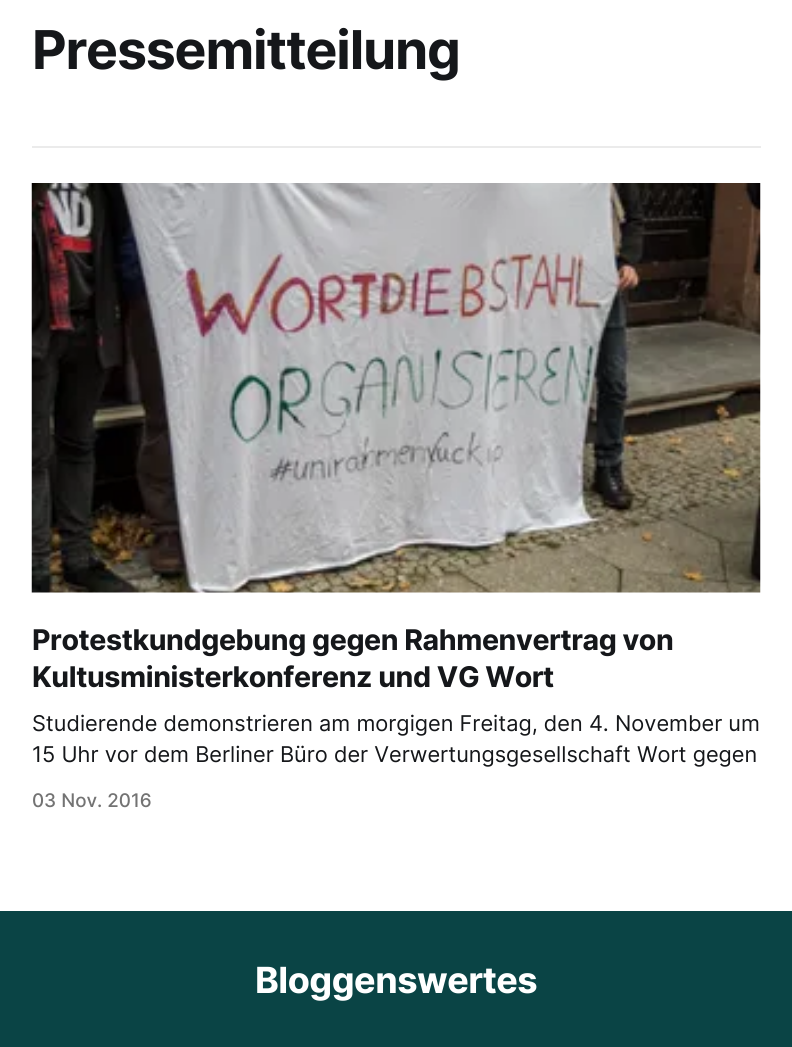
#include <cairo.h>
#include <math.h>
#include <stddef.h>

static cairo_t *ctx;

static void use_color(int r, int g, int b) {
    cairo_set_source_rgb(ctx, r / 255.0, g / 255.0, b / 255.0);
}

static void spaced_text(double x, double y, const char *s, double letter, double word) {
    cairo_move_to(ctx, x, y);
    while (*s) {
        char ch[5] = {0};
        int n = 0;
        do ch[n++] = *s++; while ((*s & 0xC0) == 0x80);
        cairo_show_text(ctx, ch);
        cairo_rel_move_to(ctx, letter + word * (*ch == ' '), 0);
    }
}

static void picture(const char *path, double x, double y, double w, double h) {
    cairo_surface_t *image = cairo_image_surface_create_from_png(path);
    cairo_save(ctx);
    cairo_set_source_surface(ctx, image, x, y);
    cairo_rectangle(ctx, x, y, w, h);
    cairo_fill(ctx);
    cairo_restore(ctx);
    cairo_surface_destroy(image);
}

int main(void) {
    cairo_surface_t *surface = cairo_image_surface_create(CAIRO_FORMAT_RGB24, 792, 1047);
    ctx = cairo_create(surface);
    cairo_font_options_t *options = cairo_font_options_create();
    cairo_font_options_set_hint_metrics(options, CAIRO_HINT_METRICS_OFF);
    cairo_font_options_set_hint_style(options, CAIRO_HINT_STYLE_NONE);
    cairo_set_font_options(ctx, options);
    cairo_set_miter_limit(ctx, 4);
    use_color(255, 255, 255);
    cairo_paint(ctx);
    use_color(235, 235, 235);
    cairo_rectangle(ctx, 32, 146, 729, 2);
    cairo_fill(ctx);
    cairo_select_font_face(ctx, "Inter", CAIRO_FONT_SLANT_NORMAL, CAIRO_FONT_WEIGHT_BOLD);
    cairo_set_font_size(ctx, 53.5);
    use_color(21, 23, 26);
    spaced_text(32, 69, "Pressemitteilung", -1.2, 0);
    picture("img1.png", 31, 183, 730, 410);
    cairo_select_font_face(ctx, "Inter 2", CAIRO_FONT_SLANT_NORMAL, CAIRO_FONT_WEIGHT_BOLD);
    cairo_set_font_size(ctx, 28.5);
    spaced_text(32, 650, "Protestkundgebung gegen Rahmenvertrag von", -0.4, 0);
    spaced_text(32, 687, "Kultusministerkonferenz und VG Wort", -0.4, 0);
    cairo_select_font_face(ctx, "Inter", CAIRO_FONT_SLANT_NORMAL, CAIRO_FONT_WEIGHT_NORMAL);
    cairo_set_font_size(ctx, 21.75);
    cairo_move_to(ctx, 32, 731);
    cairo_show_text(ctx, "Studierende demonstrieren am morgigen Freitag, den 4. November um");
    cairo_move_to(ctx, 32, 762);
    cairo_show_text(ctx, "15 Uhr vor dem Berliner Büro der Verwertungsgesellschaft Wort gegen");
    cairo_select_font_face(ctx, "Inter Medium", CAIRO_FONT_SLANT_NORMAL, CAIRO_FONT_WEIGHT_NORMAL);
    cairo_set_font_size(ctx, 18.75);
    use_color(115, 115, 115);
    cairo_move_to(ctx, 32, 807);
    cairo_show_text(ctx, "03 Nov. 2016");
    use_color(10, 68, 69);
    cairo_rectangle(ctx, 0, 911, 792, 136);
    cairo_fill(ctx);
    cairo_select_font_face(ctx, "Inter 2", CAIRO_FONT_SLANT_NORMAL, CAIRO_FONT_WEIGHT_BOLD);
    cairo_set_font_size(ctx, 36);
    use_color(255, 255, 255);
    spaced_text(255, 993, "Bloggenswertes", -0.5, 0);
    cairo_surface_write_to_png(surface, "result.png");
    cairo_font_options_destroy(options);
    cairo_destroy(ctx);
    cairo_surface_destroy(surface);
    return 0;
}
